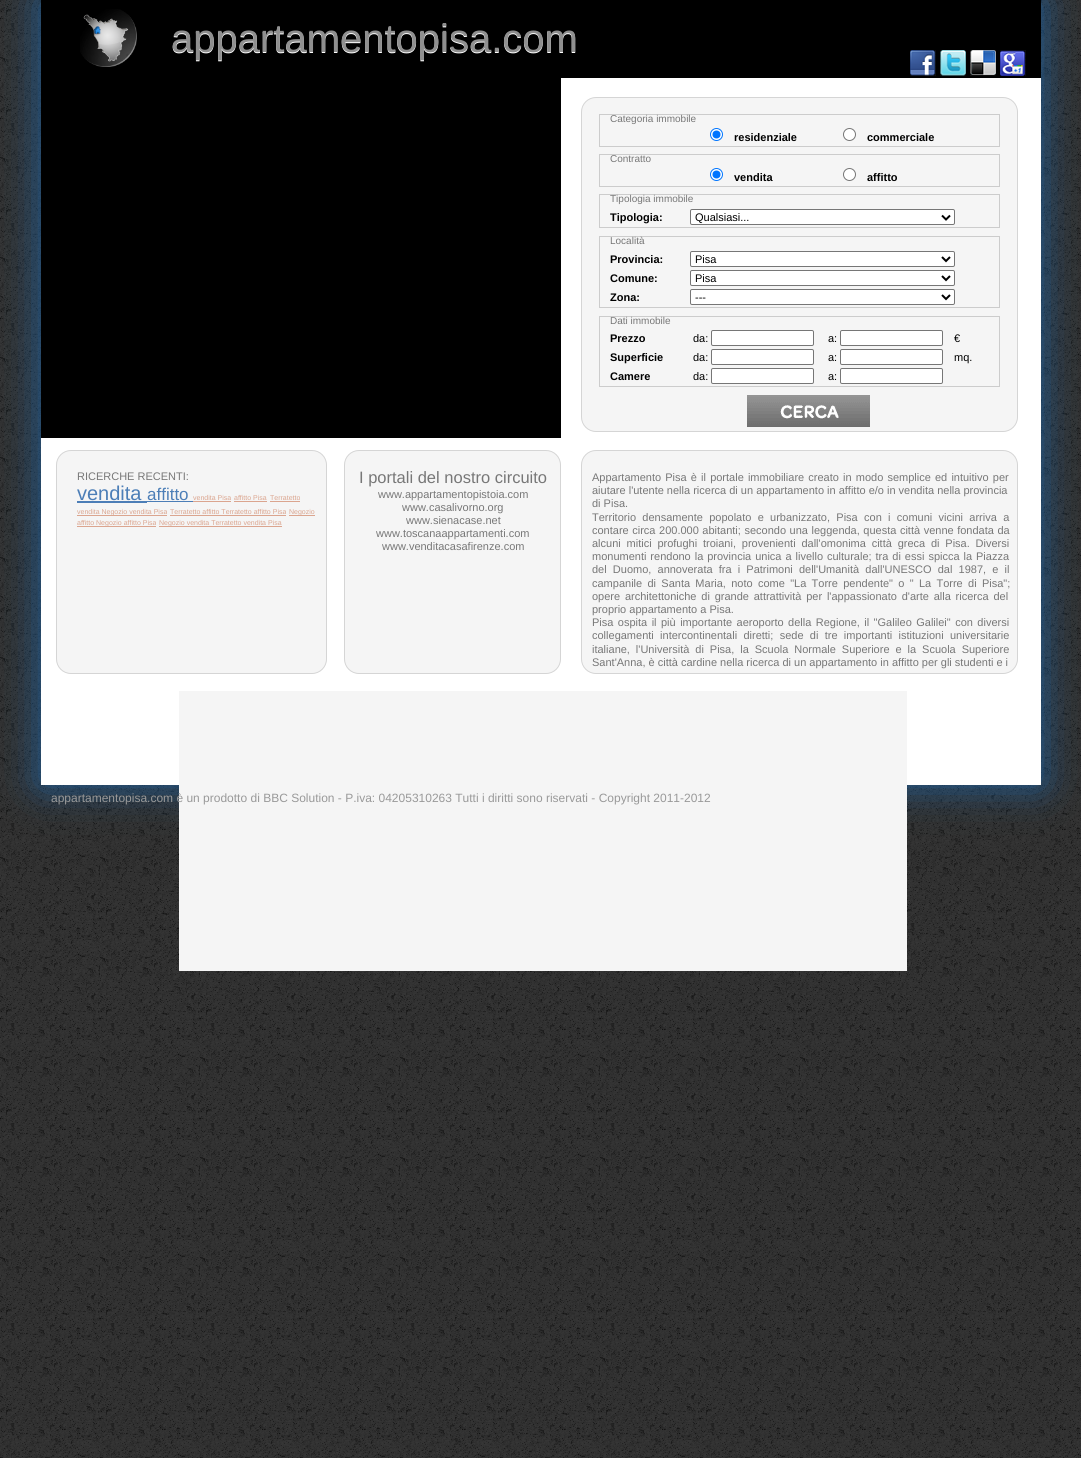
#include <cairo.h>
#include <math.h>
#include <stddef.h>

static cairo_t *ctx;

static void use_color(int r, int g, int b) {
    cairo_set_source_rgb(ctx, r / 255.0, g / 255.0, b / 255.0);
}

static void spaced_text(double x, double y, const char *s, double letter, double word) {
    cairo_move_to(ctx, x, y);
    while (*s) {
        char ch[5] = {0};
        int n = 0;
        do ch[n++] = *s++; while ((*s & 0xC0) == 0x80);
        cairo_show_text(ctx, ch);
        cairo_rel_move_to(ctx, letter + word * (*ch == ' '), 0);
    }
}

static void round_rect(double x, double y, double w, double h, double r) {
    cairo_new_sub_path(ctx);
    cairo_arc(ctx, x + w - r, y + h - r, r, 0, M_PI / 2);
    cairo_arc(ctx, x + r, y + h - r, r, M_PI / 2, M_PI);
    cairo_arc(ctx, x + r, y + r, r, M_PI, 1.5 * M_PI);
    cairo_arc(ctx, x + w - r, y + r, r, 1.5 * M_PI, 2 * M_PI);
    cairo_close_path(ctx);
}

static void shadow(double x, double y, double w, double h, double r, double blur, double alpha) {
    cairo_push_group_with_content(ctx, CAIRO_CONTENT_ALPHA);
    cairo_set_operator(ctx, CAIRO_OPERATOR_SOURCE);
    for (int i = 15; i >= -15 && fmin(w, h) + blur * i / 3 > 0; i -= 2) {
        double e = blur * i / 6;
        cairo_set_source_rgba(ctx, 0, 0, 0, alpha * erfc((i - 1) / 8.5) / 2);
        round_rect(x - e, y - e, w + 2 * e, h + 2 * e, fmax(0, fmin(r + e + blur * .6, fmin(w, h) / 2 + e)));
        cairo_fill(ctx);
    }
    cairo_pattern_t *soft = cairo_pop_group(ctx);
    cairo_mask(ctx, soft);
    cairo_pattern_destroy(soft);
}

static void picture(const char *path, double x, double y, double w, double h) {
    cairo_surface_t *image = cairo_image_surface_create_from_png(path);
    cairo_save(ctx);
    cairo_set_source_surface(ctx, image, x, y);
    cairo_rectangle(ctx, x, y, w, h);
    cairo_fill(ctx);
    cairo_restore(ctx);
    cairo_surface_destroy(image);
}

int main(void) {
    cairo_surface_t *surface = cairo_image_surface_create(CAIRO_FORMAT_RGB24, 1081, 1458);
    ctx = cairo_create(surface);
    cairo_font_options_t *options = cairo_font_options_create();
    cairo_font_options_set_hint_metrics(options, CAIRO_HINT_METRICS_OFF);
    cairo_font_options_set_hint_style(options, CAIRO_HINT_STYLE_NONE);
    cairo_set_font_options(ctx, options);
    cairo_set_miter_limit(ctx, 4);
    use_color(255, 255, 255);
    cairo_paint(ctx);
    picture("img1.png", 0, 0, 1081, 1458);
    use_color(31, 98, 159);
    shadow(41, 0, 1000, 785, 0, 20, 1);
    use_color(255, 255, 255);
    cairo_rectangle(ctx, 41, 78, 1000, 707);
    cairo_fill(ctx);
    use_color(0, 0, 0);
    cairo_rectangle(ctx, 41, 0, 1000, 78);
    cairo_fill(ctx);
    picture("img2.png", 80, 9, 57, 58);
    cairo_select_font_face(ctx, "Liberation Sans", CAIRO_FONT_SLANT_NORMAL, CAIRO_FONT_WEIGHT_NORMAL);
    cairo_set_font_size(ctx, 40);
    use_color(255, 255, 255);
    cairo_move_to(ctx, 171, 53);
    cairo_show_text(ctx, "appartamentopisa.com");
    use_color(143, 143, 143);
    cairo_move_to(ctx, 171, 52);
    cairo_show_text(ctx, "appartamentopisa.com");
    picture("img3.png", 910, 50, 26, 26);
    picture("img4.png", 940, 50, 26, 26);
    picture("img5.png", 970, 50, 26, 26);
    picture("img6.png", 1000, 50, 26, 26);
    use_color(0, 0, 0);
    cairo_rectangle(ctx, 41, 78, 520, 360);
    cairo_fill(ctx);
    use_color(245, 245, 245);
    round_rect(581.5, 97.5, 436, 334, 14.5);
    cairo_fill_preserve(ctx);
    use_color(213, 213, 213);
    cairo_set_line_width(ctx, 1);
    cairo_stroke(ctx);
    cairo_rectangle(ctx, 599.5, 114.5, 400, 32);
    use_color(204, 204, 204);
    cairo_stroke(ctx);
    cairo_set_font_size(ctx, 10);
    use_color(119, 119, 119);
    cairo_move_to(ctx, 610, 122);
    cairo_show_text(ctx, "Categoria immobile");
    use_color(255, 255, 255);
    cairo_new_path(ctx);
    cairo_arc(ctx, 716.5, 134.5, 6, 0, 2 * M_PI);
    cairo_fill_preserve(ctx);
    use_color(0, 117, 255);
    cairo_stroke(ctx);
    cairo_arc(ctx, 716.5, 134.5, 4, 0, 2 * M_PI);
    cairo_fill(ctx);
    cairo_select_font_face(ctx, "Liberation Sans", CAIRO_FONT_SLANT_NORMAL, CAIRO_FONT_WEIGHT_BOLD);
    cairo_set_font_size(ctx, 11);
    use_color(0, 0, 0);
    cairo_move_to(ctx, 734, 141);
    cairo_show_text(ctx, "residenziale");
    use_color(255, 255, 255);
    cairo_new_path(ctx);
    cairo_arc(ctx, 849.5, 134.5, 6, 0, 2 * M_PI);
    cairo_fill_preserve(ctx);
    use_color(118, 118, 118);
    cairo_stroke(ctx);
    use_color(0, 0, 0);
    cairo_move_to(ctx, 867, 141);
    cairo_show_text(ctx, "commerciale");
    cairo_rectangle(ctx, 599.5, 154.5, 400, 32);
    use_color(204, 204, 204);
    cairo_stroke(ctx);
    cairo_select_font_face(ctx, "Liberation Sans", CAIRO_FONT_SLANT_NORMAL, CAIRO_FONT_WEIGHT_NORMAL);
    cairo_set_font_size(ctx, 10);
    use_color(119, 119, 119);
    cairo_move_to(ctx, 610, 162);
    cairo_show_text(ctx, "Contratto");
    use_color(255, 255, 255);
    cairo_new_path(ctx);
    cairo_arc(ctx, 716.5, 174.5, 6, 0, 2 * M_PI);
    cairo_fill_preserve(ctx);
    use_color(0, 117, 255);
    cairo_stroke(ctx);
    cairo_arc(ctx, 716.5, 174.5, 4, 0, 2 * M_PI);
    cairo_fill(ctx);
    cairo_select_font_face(ctx, "Liberation Sans", CAIRO_FONT_SLANT_NORMAL, CAIRO_FONT_WEIGHT_BOLD);
    cairo_set_font_size(ctx, 11);
    use_color(0, 0, 0);
    cairo_move_to(ctx, 734, 181);
    cairo_show_text(ctx, "vendita");
    use_color(255, 255, 255);
    cairo_new_path(ctx);
    cairo_arc(ctx, 849.5, 174.5, 6, 0, 2 * M_PI);
    cairo_fill_preserve(ctx);
    use_color(118, 118, 118);
    cairo_stroke(ctx);
    use_color(0, 0, 0);
    cairo_move_to(ctx, 867, 181);
    cairo_show_text(ctx, "affitto");
    cairo_rectangle(ctx, 599.5, 194.5, 400, 33);
    use_color(204, 204, 204);
    cairo_stroke(ctx);
    cairo_select_font_face(ctx, "Liberation Sans", CAIRO_FONT_SLANT_NORMAL, CAIRO_FONT_WEIGHT_NORMAL);
    cairo_set_font_size(ctx, 10);
    use_color(119, 119, 119);
    cairo_move_to(ctx, 610, 202);
    cairo_show_text(ctx, "Tipologia immobile");
    cairo_select_font_face(ctx, "Liberation Sans", CAIRO_FONT_SLANT_NORMAL, CAIRO_FONT_WEIGHT_BOLD);
    cairo_set_font_size(ctx, 11);
    use_color(0, 0, 0);
    cairo_move_to(ctx, 610, 221);
    cairo_show_text(ctx, "Tipologia:");
    use_color(255, 255, 255);
    round_rect(690.5, 209.5, 264, 15, 1.5);
    cairo_fill_preserve(ctx);
    use_color(118, 118, 118);
    cairo_stroke(ctx);
    cairo_new_path(ctx);
    cairo_move_to(ctx, 942, 215.5);
    cairo_line_to(ctx, 946, 219.5);
    cairo_line_to(ctx, 950, 215.5);
    use_color(0, 0, 0);
    cairo_set_line_width(ctx, 2);
    cairo_stroke(ctx);
    cairo_select_font_face(ctx, "Liberation Sans", CAIRO_FONT_SLANT_NORMAL, CAIRO_FONT_WEIGHT_NORMAL);
    cairo_move_to(ctx, 695, 221);
    cairo_show_text(ctx, "Qualsiasi...");
    cairo_rectangle(ctx, 599.5, 236.5, 400, 71);
    use_color(204, 204, 204);
    cairo_set_line_width(ctx, 1);
    cairo_stroke(ctx);
    cairo_set_font_size(ctx, 10);
    use_color(119, 119, 119);
    cairo_move_to(ctx, 610, 244);
    cairo_show_text(ctx, "Località");
    cairo_select_font_face(ctx, "Liberation Sans", CAIRO_FONT_SLANT_NORMAL, CAIRO_FONT_WEIGHT_BOLD);
    cairo_set_font_size(ctx, 11);
    use_color(0, 0, 0);
    cairo_move_to(ctx, 610, 263);
    cairo_show_text(ctx, "Provincia:");
    use_color(255, 255, 255);
    round_rect(690.5, 251.5, 264, 15, 1.5);
    cairo_fill_preserve(ctx);
    use_color(118, 118, 118);
    cairo_stroke(ctx);
    cairo_new_path(ctx);
    cairo_move_to(ctx, 942, 257);
    cairo_line_to(ctx, 946, 261);
    cairo_line_to(ctx, 950, 257);
    use_color(0, 0, 0);
    cairo_set_line_width(ctx, 2);
    cairo_stroke(ctx);
    cairo_select_font_face(ctx, "Liberation Sans", CAIRO_FONT_SLANT_NORMAL, CAIRO_FONT_WEIGHT_NORMAL);
    cairo_move_to(ctx, 695, 263);
    cairo_show_text(ctx, "Pisa");
    cairo_select_font_face(ctx, "Liberation Sans", CAIRO_FONT_SLANT_NORMAL, CAIRO_FONT_WEIGHT_BOLD);
    cairo_move_to(ctx, 610, 282);
    cairo_show_text(ctx, "Comune:");
    use_color(255, 255, 255);
    round_rect(690.5, 270.5, 264, 15, 1.5);
    cairo_fill_preserve(ctx);
    use_color(118, 118, 118);
    cairo_set_line_width(ctx, 1);
    cairo_stroke(ctx);
    cairo_new_path(ctx);
    cairo_move_to(ctx, 942, 276);
    cairo_line_to(ctx, 946, 280);
    cairo_line_to(ctx, 950, 276);
    use_color(0, 0, 0);
    cairo_set_line_width(ctx, 2);
    cairo_stroke(ctx);
    cairo_select_font_face(ctx, "Liberation Sans", CAIRO_FONT_SLANT_NORMAL, CAIRO_FONT_WEIGHT_NORMAL);
    cairo_move_to(ctx, 695, 282);
    cairo_show_text(ctx, "Pisa");
    cairo_select_font_face(ctx, "Liberation Sans", CAIRO_FONT_SLANT_NORMAL, CAIRO_FONT_WEIGHT_BOLD);
    cairo_move_to(ctx, 610, 301);
    cairo_show_text(ctx, "Zona:");
    use_color(255, 255, 255);
    round_rect(690.5, 289.5, 264, 15, 1.5);
    cairo_fill_preserve(ctx);
    use_color(118, 118, 118);
    cairo_set_line_width(ctx, 1);
    cairo_stroke(ctx);
    cairo_new_path(ctx);
    cairo_move_to(ctx, 942, 295);
    cairo_line_to(ctx, 946, 299);
    cairo_line_to(ctx, 950, 295);
    use_color(0, 0, 0);
    cairo_set_line_width(ctx, 2);
    cairo_stroke(ctx);
    cairo_select_font_face(ctx, "Liberation Sans", CAIRO_FONT_SLANT_NORMAL, CAIRO_FONT_WEIGHT_NORMAL);
    cairo_move_to(ctx, 695, 301);
    cairo_show_text(ctx, "---");
    cairo_rectangle(ctx, 599.5, 316.5, 400, 70);
    use_color(204, 204, 204);
    cairo_set_line_width(ctx, 1);
    cairo_stroke(ctx);
    cairo_set_font_size(ctx, 10);
    use_color(119, 119, 119);
    cairo_move_to(ctx, 610, 324);
    cairo_show_text(ctx, "Dati immobile");
    cairo_select_font_face(ctx, "Liberation Sans", CAIRO_FONT_SLANT_NORMAL, CAIRO_FONT_WEIGHT_BOLD);
    cairo_set_font_size(ctx, 11);
    use_color(0, 0, 0);
    cairo_move_to(ctx, 610, 342);
    cairo_show_text(ctx, "Prezzo");
    cairo_select_font_face(ctx, "Liberation Sans", CAIRO_FONT_SLANT_NORMAL, CAIRO_FONT_WEIGHT_NORMAL);
    cairo_move_to(ctx, 693, 342);
    cairo_show_text(ctx, "da:");
    use_color(255, 255, 255);
    round_rect(711.5, 330.5, 102, 15, 1.5);
    cairo_fill_preserve(ctx);
    use_color(118, 118, 118);
    cairo_stroke(ctx);
    use_color(0, 0, 0);
    cairo_move_to(ctx, 828, 342);
    cairo_show_text(ctx, "a:");
    use_color(255, 255, 255);
    round_rect(840.5, 330.5, 102, 15, 1.5);
    cairo_fill_preserve(ctx);
    use_color(118, 118, 118);
    cairo_stroke(ctx);
    use_color(0, 0, 0);
    cairo_move_to(ctx, 954, 342);
    cairo_show_text(ctx, "€");
    cairo_select_font_face(ctx, "Liberation Sans", CAIRO_FONT_SLANT_NORMAL, CAIRO_FONT_WEIGHT_BOLD);
    cairo_move_to(ctx, 610, 361);
    cairo_show_text(ctx, "Superficie");
    cairo_select_font_face(ctx, "Liberation Sans", CAIRO_FONT_SLANT_NORMAL, CAIRO_FONT_WEIGHT_NORMAL);
    cairo_move_to(ctx, 693, 361);
    cairo_show_text(ctx, "da:");
    use_color(255, 255, 255);
    round_rect(711.5, 349.5, 102, 15, 1.5);
    cairo_fill_preserve(ctx);
    use_color(118, 118, 118);
    cairo_stroke(ctx);
    use_color(0, 0, 0);
    cairo_move_to(ctx, 828, 361);
    cairo_show_text(ctx, "a:");
    use_color(255, 255, 255);
    round_rect(840.5, 349.5, 102, 15, 1.5);
    cairo_fill_preserve(ctx);
    use_color(118, 118, 118);
    cairo_stroke(ctx);
    use_color(0, 0, 0);
    cairo_move_to(ctx, 954, 361);
    cairo_show_text(ctx, "mq.");
    cairo_select_font_face(ctx, "Liberation Sans", CAIRO_FONT_SLANT_NORMAL, CAIRO_FONT_WEIGHT_BOLD);
    cairo_move_to(ctx, 610, 380);
    cairo_show_text(ctx, "Camere");
    cairo_select_font_face(ctx, "Liberation Sans", CAIRO_FONT_SLANT_NORMAL, CAIRO_FONT_WEIGHT_NORMAL);
    cairo_move_to(ctx, 693, 380);
    cairo_show_text(ctx, "da:");
    use_color(255, 255, 255);
    round_rect(711.5, 368.5, 102, 15, 1.5);
    cairo_fill_preserve(ctx);
    use_color(118, 118, 118);
    cairo_stroke(ctx);
    use_color(0, 0, 0);
    cairo_move_to(ctx, 828, 380);
    cairo_show_text(ctx, "a:");
    use_color(255, 255, 255);
    round_rect(840.5, 368.5, 102, 15, 1.5);
    cairo_fill_preserve(ctx);
    use_color(118, 118, 118);
    cairo_stroke(ctx);
    picture("img7.png", 747, 395, 123, 32);
    use_color(245, 245, 245);
    round_rect(56.5, 450.5, 270, 223, 14.5);
    cairo_fill_preserve(ctx);
    use_color(213, 213, 213);
    cairo_stroke(ctx);
    use_color(119, 119, 119);
    cairo_move_to(ctx, 77, 480);
    cairo_show_text(ctx, "RICERCHE RECENTI:");
    cairo_set_font_size(ctx, 20);
    use_color(76, 126, 183);
    cairo_move_to(ctx, 77, 500);
    cairo_show_text(ctx, "vendita");
    cairo_rectangle(ctx, 77, 501, 70, 2);
    cairo_fill(ctx);
    cairo_set_font_size(ctx, 17);
    cairo_move_to(ctx, 147, 500);
    cairo_show_text(ctx, "affitto");
    cairo_rectangle(ctx, 147, 501, 46, 1);
    cairo_fill(ctx);
    cairo_set_font_size(ctx, 7);
    use_color(219, 165, 143);
    cairo_move_to(ctx, 193, 500);
    cairo_show_text(ctx, "vendita Pisa");
    cairo_rectangle(ctx, 193, 501, 38, 1);
    cairo_fill(ctx);
    cairo_move_to(ctx, 234, 500);
    cairo_show_text(ctx, "affitto Pisa");
    cairo_rectangle(ctx, 234, 501, 33, 1);
    cairo_fill(ctx);
    cairo_move_to(ctx, 270, 500);
    cairo_show_text(ctx, "Terratetto");
    cairo_rectangle(ctx, 270, 501, 30, 1);
    cairo_fill(ctx);
    cairo_rectangle(ctx, 77, 515, 90, 1);
    cairo_fill(ctx);
    cairo_move_to(ctx, 77, 514);
    cairo_show_text(ctx, "vendita Negozio vendita Pisa");
    cairo_move_to(ctx, 170, 514);
    cairo_show_text(ctx, "Terratetto affitto Terratetto affitto Pisa");
    cairo_rectangle(ctx, 170, 515, 116, 1);
    cairo_fill(ctx);
    cairo_rectangle(ctx, 289, 515, 26, 1);
    cairo_fill(ctx);
    cairo_move_to(ctx, 289, 514);
    cairo_show_text(ctx, "Negozio");
    cairo_rectangle(ctx, 77, 526, 79, 1);
    cairo_fill(ctx);
    cairo_move_to(ctx, 77, 525);
    cairo_show_text(ctx, "affitto Negozio affitto Pisa");
    cairo_rectangle(ctx, 159, 526, 123, 1);
    cairo_fill(ctx);
    cairo_move_to(ctx, 159, 525);
    cairo_show_text(ctx, "Negozio vendita Terratetto vendita Pisa");
    use_color(245, 245, 245);
    round_rect(344.5, 450.5, 216, 223, 14.5);
    cairo_fill_preserve(ctx);
    use_color(213, 213, 213);
    cairo_stroke(ctx);
    cairo_set_font_size(ctx, 16.5);
    use_color(119, 119, 119);
    cairo_move_to(ctx, 359, 483);
    cairo_show_text(ctx, "I portali del nostro circuito");
    cairo_set_font_size(ctx, 11);
    cairo_move_to(ctx, 378, 498);
    cairo_show_text(ctx, "www.appartamentopistoia.com");
    cairo_move_to(ctx, 402, 511);
    cairo_show_text(ctx, "www.casalivorno.org");
    cairo_move_to(ctx, 406, 524);
    cairo_show_text(ctx, "www.sienacase.net");
    cairo_move_to(ctx, 376, 537);
    cairo_show_text(ctx, "www.toscanaappartamenti.com");
    cairo_move_to(ctx, 382, 550);
    cairo_show_text(ctx, "www.venditacasafirenze.com");
    use_color(245, 245, 245);
    round_rect(581.5, 450.5, 436, 223, 14.5);
    cairo_fill_preserve(ctx);
    use_color(213, 213, 213);
    cairo_stroke(ctx);
    use_color(119, 119, 119);
    spaced_text(592, 481, "Appartamento Pisa è il portale immobiliare creato in modo semplice ed intuitivo per", 0, 1.1);
    cairo_move_to(ctx, 592, 494);
    cairo_show_text(ctx, "aiutare l'utente nella ricerca di un appartamento in affitto e/o in vendita nella provincia");
    cairo_move_to(ctx, 592, 507);
    cairo_show_text(ctx, "di Pisa.");
    spaced_text(592, 521, "Territorio densamente popolato e urbanizzato, Pisa con i comuni vicini arriva a", 0, 3.25);
    spaced_text(592, 534, "contare circa 200.000 abitanti; secondo una leggenda, questa città venne fondata da", 0, 0.5);
    spaced_text(592, 547, "alcuni mitici profughi troiani, provenienti dall'omonima città greca di Pisa. Diversi", 0, 2.75);
    spaced_text(592, 560, "monumenti rendono la provincia unica a livello culturale; tra di essi spicca la Piazza", 0, 0.9);
    spaced_text(592, 573, "del Duomo, annoverata fra i Patrimoni dell'Umanità dall'UNESCO dal 1987, e il", 0, 3.1);
    spaced_text(592, 587, "campanile di Santa Maria, noto come \"La Torre pendente\" o \" La Torre di Pisa\";", 0, 2.25);
    spaced_text(592, 600, "opere architettoniche di grande attrattività per l'appassionato d'arte alla ricerca del", 0, 1.75);
    cairo_move_to(ctx, 592, 613);
    cairo_show_text(ctx, "proprio appartamento a Pisa.");
    spaced_text(592, 626, "Pisa ospita il più importante aeroporto della Regione, il \"Galileo Galilei\" con diversi", 0, 1.4);
    spaced_text(592, 639, "collegamenti intercontinentali diretti; sede di tre importanti istituzioni universitarie", 0, 3.25);
    spaced_text(592, 653, "italiane, l'Università di Pisa, la Scuola Normale Superiore e la Scuola Superiore", 0, 2.9);
    cairo_move_to(ctx, 592, 666);
    cairo_show_text(ctx, "Sant'Anna, è città cardine nella ricerca di un appartamento in affitto per gli studenti e i");
    use_color(245, 245, 245);
    cairo_rectangle(ctx, 179, 691, 728, 280);
    cairo_fill(ctx);
    cairo_set_font_size(ctx, 12);
    use_color(153, 153, 153);
    cairo_move_to(ctx, 51, 802);
    cairo_show_text(ctx, "appartamentopisa.com è un prodotto di BBC Solution - P.iva: 04205310263 Tutti i diritti sono riservati - Copyright 2011-2012");
    cairo_surface_write_to_png(surface, "result.png");
    cairo_font_options_destroy(options);
    cairo_destroy(ctx);
    cairo_surface_destroy(surface);
    return 0;
}
